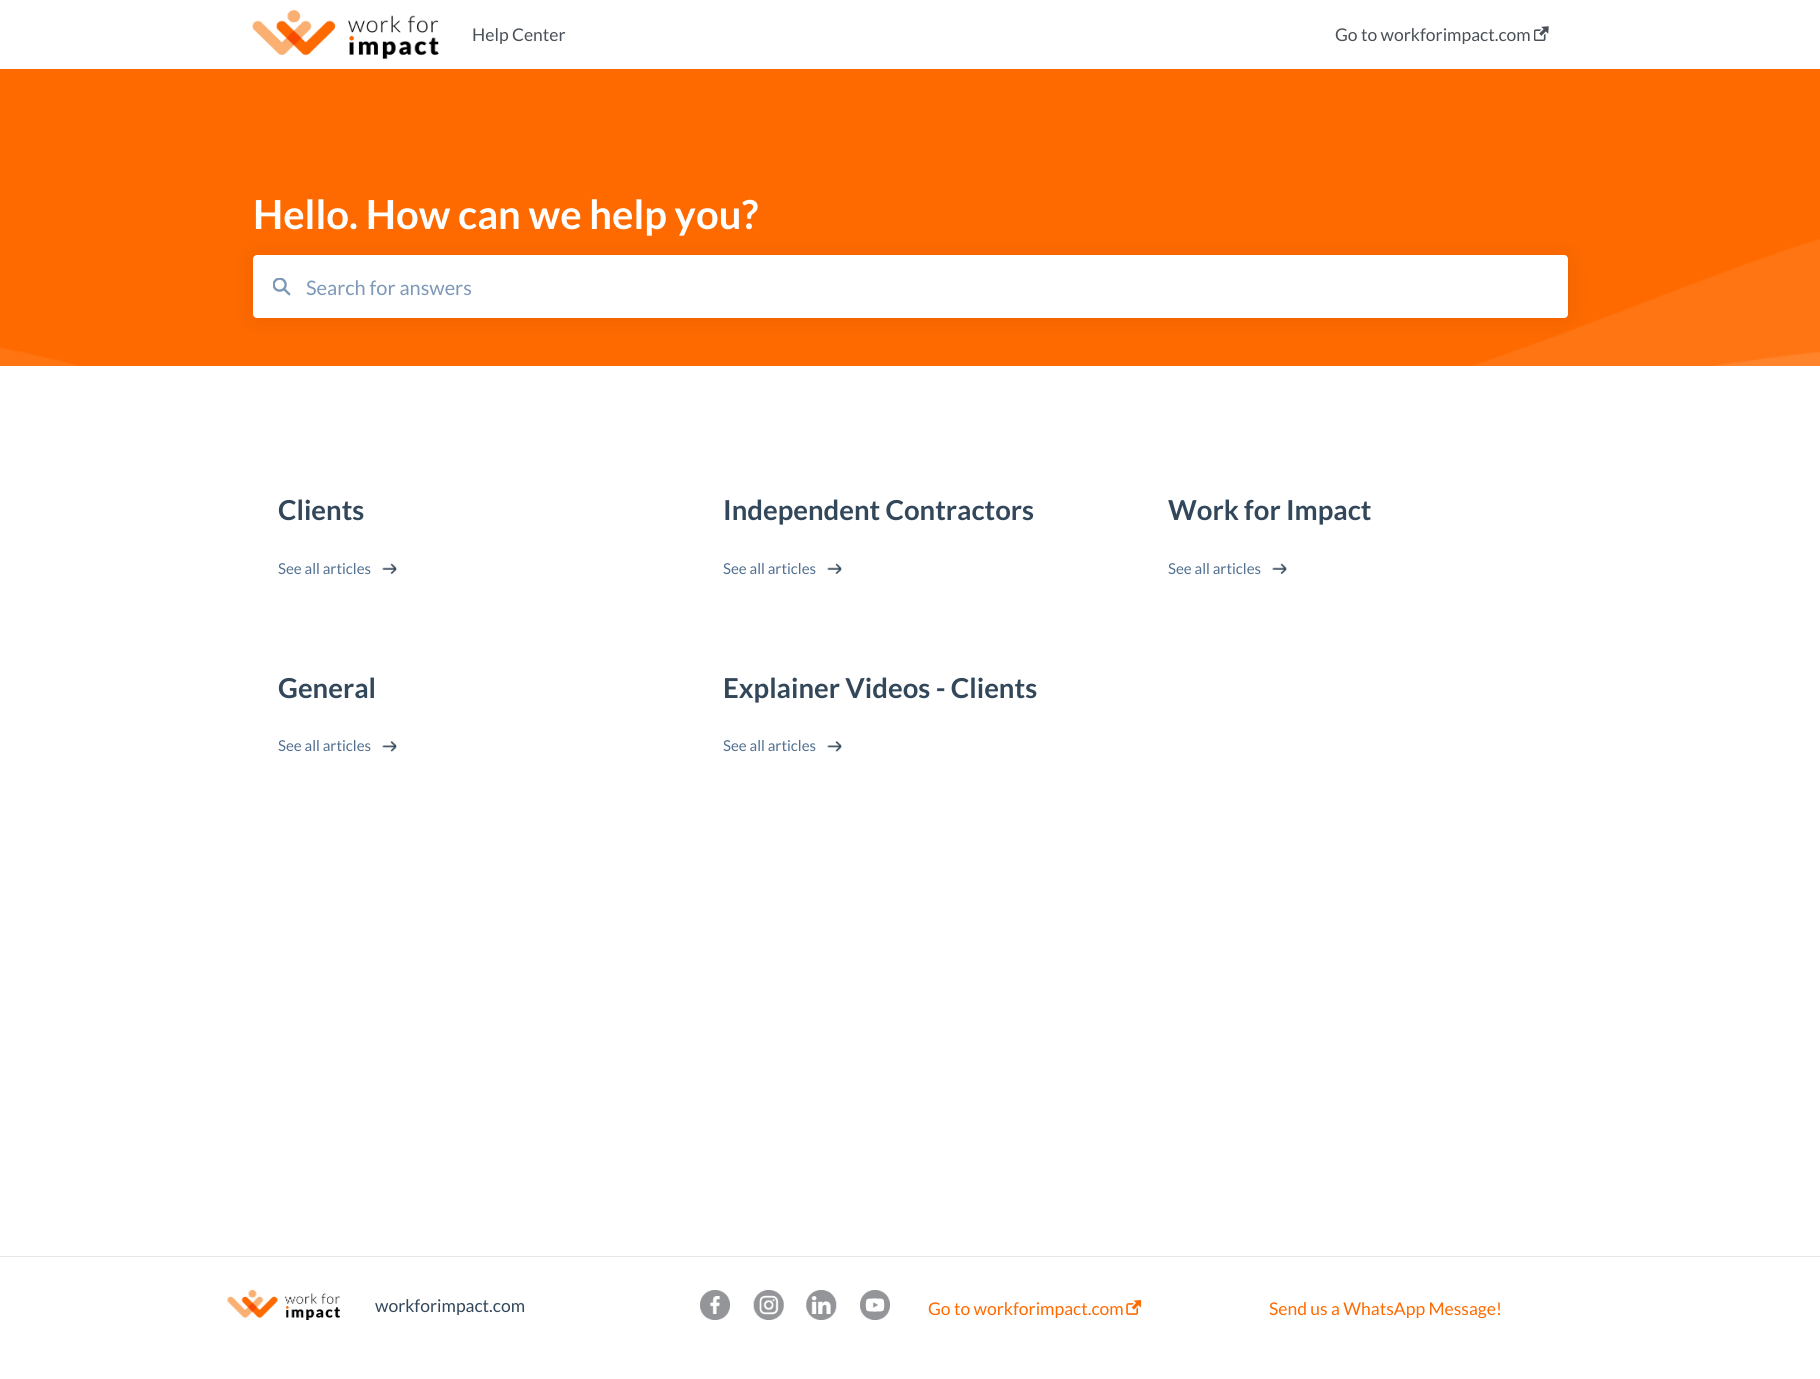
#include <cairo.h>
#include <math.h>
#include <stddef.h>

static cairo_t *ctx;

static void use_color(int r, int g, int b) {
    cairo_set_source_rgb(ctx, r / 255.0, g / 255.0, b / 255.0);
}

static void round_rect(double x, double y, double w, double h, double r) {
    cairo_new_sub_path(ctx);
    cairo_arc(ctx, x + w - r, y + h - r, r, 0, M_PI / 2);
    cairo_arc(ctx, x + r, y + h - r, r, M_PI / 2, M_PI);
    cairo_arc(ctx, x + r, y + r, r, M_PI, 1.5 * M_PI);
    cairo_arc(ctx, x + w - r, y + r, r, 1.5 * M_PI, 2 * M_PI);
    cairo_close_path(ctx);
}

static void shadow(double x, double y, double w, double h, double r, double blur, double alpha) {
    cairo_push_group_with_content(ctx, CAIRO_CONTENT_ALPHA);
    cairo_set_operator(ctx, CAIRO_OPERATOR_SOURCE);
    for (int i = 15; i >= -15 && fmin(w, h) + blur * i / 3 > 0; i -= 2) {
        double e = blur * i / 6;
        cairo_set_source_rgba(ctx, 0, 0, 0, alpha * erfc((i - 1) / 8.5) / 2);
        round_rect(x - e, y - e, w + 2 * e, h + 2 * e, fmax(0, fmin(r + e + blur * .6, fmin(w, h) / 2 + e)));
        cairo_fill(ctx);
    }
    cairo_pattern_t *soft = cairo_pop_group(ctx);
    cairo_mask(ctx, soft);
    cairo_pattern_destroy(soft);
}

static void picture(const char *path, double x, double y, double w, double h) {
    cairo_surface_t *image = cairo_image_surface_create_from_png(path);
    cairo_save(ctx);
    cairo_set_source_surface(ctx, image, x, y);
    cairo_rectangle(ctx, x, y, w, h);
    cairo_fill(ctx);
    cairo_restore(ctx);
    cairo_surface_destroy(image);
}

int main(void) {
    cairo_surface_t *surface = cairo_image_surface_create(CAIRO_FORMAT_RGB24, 1820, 1379);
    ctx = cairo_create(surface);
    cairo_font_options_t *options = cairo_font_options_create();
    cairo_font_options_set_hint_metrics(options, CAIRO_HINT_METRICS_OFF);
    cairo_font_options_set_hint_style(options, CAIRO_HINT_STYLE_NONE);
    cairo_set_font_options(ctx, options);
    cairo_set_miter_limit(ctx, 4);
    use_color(255, 255, 255);
    cairo_paint(ctx);
    picture("img1.png", 252, 10, 187, 49);
    cairo_select_font_face(ctx, "Lato", CAIRO_FONT_SLANT_NORMAL, CAIRO_FONT_WEIGHT_NORMAL);
    cairo_set_font_size(ctx, 17.5);
    use_color(73, 80, 87);
    cairo_move_to(ctx, 472, 41);
    cairo_show_text(ctx, "Help Center");
    cairo_move_to(ctx, 1335, 41);
    cairo_show_text(ctx, "Go to workforimpact.com");
    picture("img2.png", 1534, 26, 15, 15);
    use_color(255, 106, 0);
    cairo_rectangle(ctx, 0, 69, 1820, 297);
    cairo_fill(ctx);
    picture("img3.png", 0, 239, 1820, 127);
    cairo_select_font_face(ctx, "Lato", CAIRO_FONT_SLANT_NORMAL, CAIRO_FONT_WEIGHT_BOLD);
    cairo_set_font_size(ctx, 40);
    use_color(255, 255, 255);
    cairo_move_to(ctx, 253, 229);
    cairo_show_text(ctx, "Hello. How can we help you?");
    use_color(0, 0, 0);
    shadow(253, 256, 1315, 63, 4, 15, 0.08);
    use_color(255, 255, 255);
    round_rect(253, 255, 1315, 63, 4);
    cairo_fill(ctx);
    picture("img4.png", 273, 278, 18, 18);
    cairo_select_font_face(ctx, "Lato", CAIRO_FONT_SLANT_NORMAL, CAIRO_FONT_WEIGHT_NORMAL);
    cairo_set_font_size(ctx, 20);
    use_color(124, 152, 182);
    cairo_move_to(ctx, 306, 295);
    cairo_show_text(ctx, "Search for answers");
    cairo_select_font_face(ctx, "Lato", CAIRO_FONT_SLANT_NORMAL, CAIRO_FONT_WEIGHT_BOLD);
    cairo_set_font_size(ctx, 27.5);
    use_color(51, 71, 91);
    cairo_move_to(ctx, 278, 520);
    cairo_show_text(ctx, "Clients");
    cairo_select_font_face(ctx, "Lato", CAIRO_FONT_SLANT_NORMAL, CAIRO_FONT_WEIGHT_NORMAL);
    cairo_set_font_size(ctx, 15);
    use_color(81, 111, 144);
    cairo_move_to(ctx, 278, 574);
    cairo_show_text(ctx, "See all articles");
    picture("img5.png", 382, 563, 15, 11);
    cairo_select_font_face(ctx, "Lato", CAIRO_FONT_SLANT_NORMAL, CAIRO_FONT_WEIGHT_BOLD);
    cairo_set_font_size(ctx, 27.5);
    use_color(51, 71, 91);
    cairo_move_to(ctx, 723, 520);
    cairo_show_text(ctx, "Independent Contractors");
    cairo_select_font_face(ctx, "Lato", CAIRO_FONT_SLANT_NORMAL, CAIRO_FONT_WEIGHT_NORMAL);
    cairo_set_font_size(ctx, 15);
    use_color(81, 111, 144);
    cairo_move_to(ctx, 723, 574);
    cairo_show_text(ctx, "See all articles");
    picture("img5.png", 827, 563, 15, 11);
    cairo_select_font_face(ctx, "Lato", CAIRO_FONT_SLANT_NORMAL, CAIRO_FONT_WEIGHT_BOLD);
    cairo_set_font_size(ctx, 27.5);
    use_color(51, 71, 91);
    cairo_move_to(ctx, 1168, 520);
    cairo_show_text(ctx, "Work for Impact");
    cairo_select_font_face(ctx, "Lato", CAIRO_FONT_SLANT_NORMAL, CAIRO_FONT_WEIGHT_NORMAL);
    cairo_set_font_size(ctx, 15);
    use_color(81, 111, 144);
    cairo_move_to(ctx, 1168, 574);
    cairo_show_text(ctx, "See all articles");
    picture("img5.png", 1272, 563, 15, 11);
    cairo_select_font_face(ctx, "Lato", CAIRO_FONT_SLANT_NORMAL, CAIRO_FONT_WEIGHT_BOLD);
    cairo_set_font_size(ctx, 27.5);
    use_color(51, 71, 91);
    cairo_move_to(ctx, 278, 698);
    cairo_show_text(ctx, "General");
    cairo_select_font_face(ctx, "Lato", CAIRO_FONT_SLANT_NORMAL, CAIRO_FONT_WEIGHT_NORMAL);
    cairo_set_font_size(ctx, 15);
    use_color(81, 111, 144);
    cairo_move_to(ctx, 278, 751);
    cairo_show_text(ctx, "See all articles");
    picture("img6.png", 382, 741, 15, 11);
    cairo_select_font_face(ctx, "Lato", CAIRO_FONT_SLANT_NORMAL, CAIRO_FONT_WEIGHT_BOLD);
    cairo_set_font_size(ctx, 27.5);
    use_color(51, 71, 91);
    cairo_move_to(ctx, 723, 698);
    cairo_show_text(ctx, "Explainer Videos - Clients");
    cairo_select_font_face(ctx, "Lato", CAIRO_FONT_SLANT_NORMAL, CAIRO_FONT_WEIGHT_NORMAL);
    cairo_set_font_size(ctx, 15);
    use_color(81, 111, 144);
    cairo_move_to(ctx, 723, 751);
    cairo_show_text(ctx, "See all articles");
    picture("img6.png", 827, 741, 15, 11);
    use_color(230, 230, 230);
    cairo_rectangle(ctx, 0, 1256, 1820, 1);
    cairo_fill(ctx);
    picture("img7.png", 227, 1290, 113, 30);
    cairo_set_font_size(ctx, 17.5);
    use_color(51, 71, 91);
    cairo_move_to(ctx, 375, 1312);
    cairo_show_text(ctx, "workforimpact.com");
    picture("img8.png", 700, 1290, 30, 30);
    picture("img9.png", 753, 1290, 31, 30);
    picture("img10.png", 806, 1290, 31, 30);
    picture("img11.png", 860, 1290, 30, 30);
    use_color(255, 106, 0);
    cairo_move_to(ctx, 928, 1315);
    cairo_show_text(ctx, "Go to workforimpact.com");
    picture("img12.png", 1126, 1300, 15, 15);
    cairo_move_to(ctx, 1269, 1315);
    cairo_show_text(ctx, "Send us a WhatsApp Message!");
    cairo_surface_write_to_png(surface, "result.png");
    cairo_font_options_destroy(options);
    cairo_destroy(ctx);
    cairo_surface_destroy(surface);
    return 0;
}
